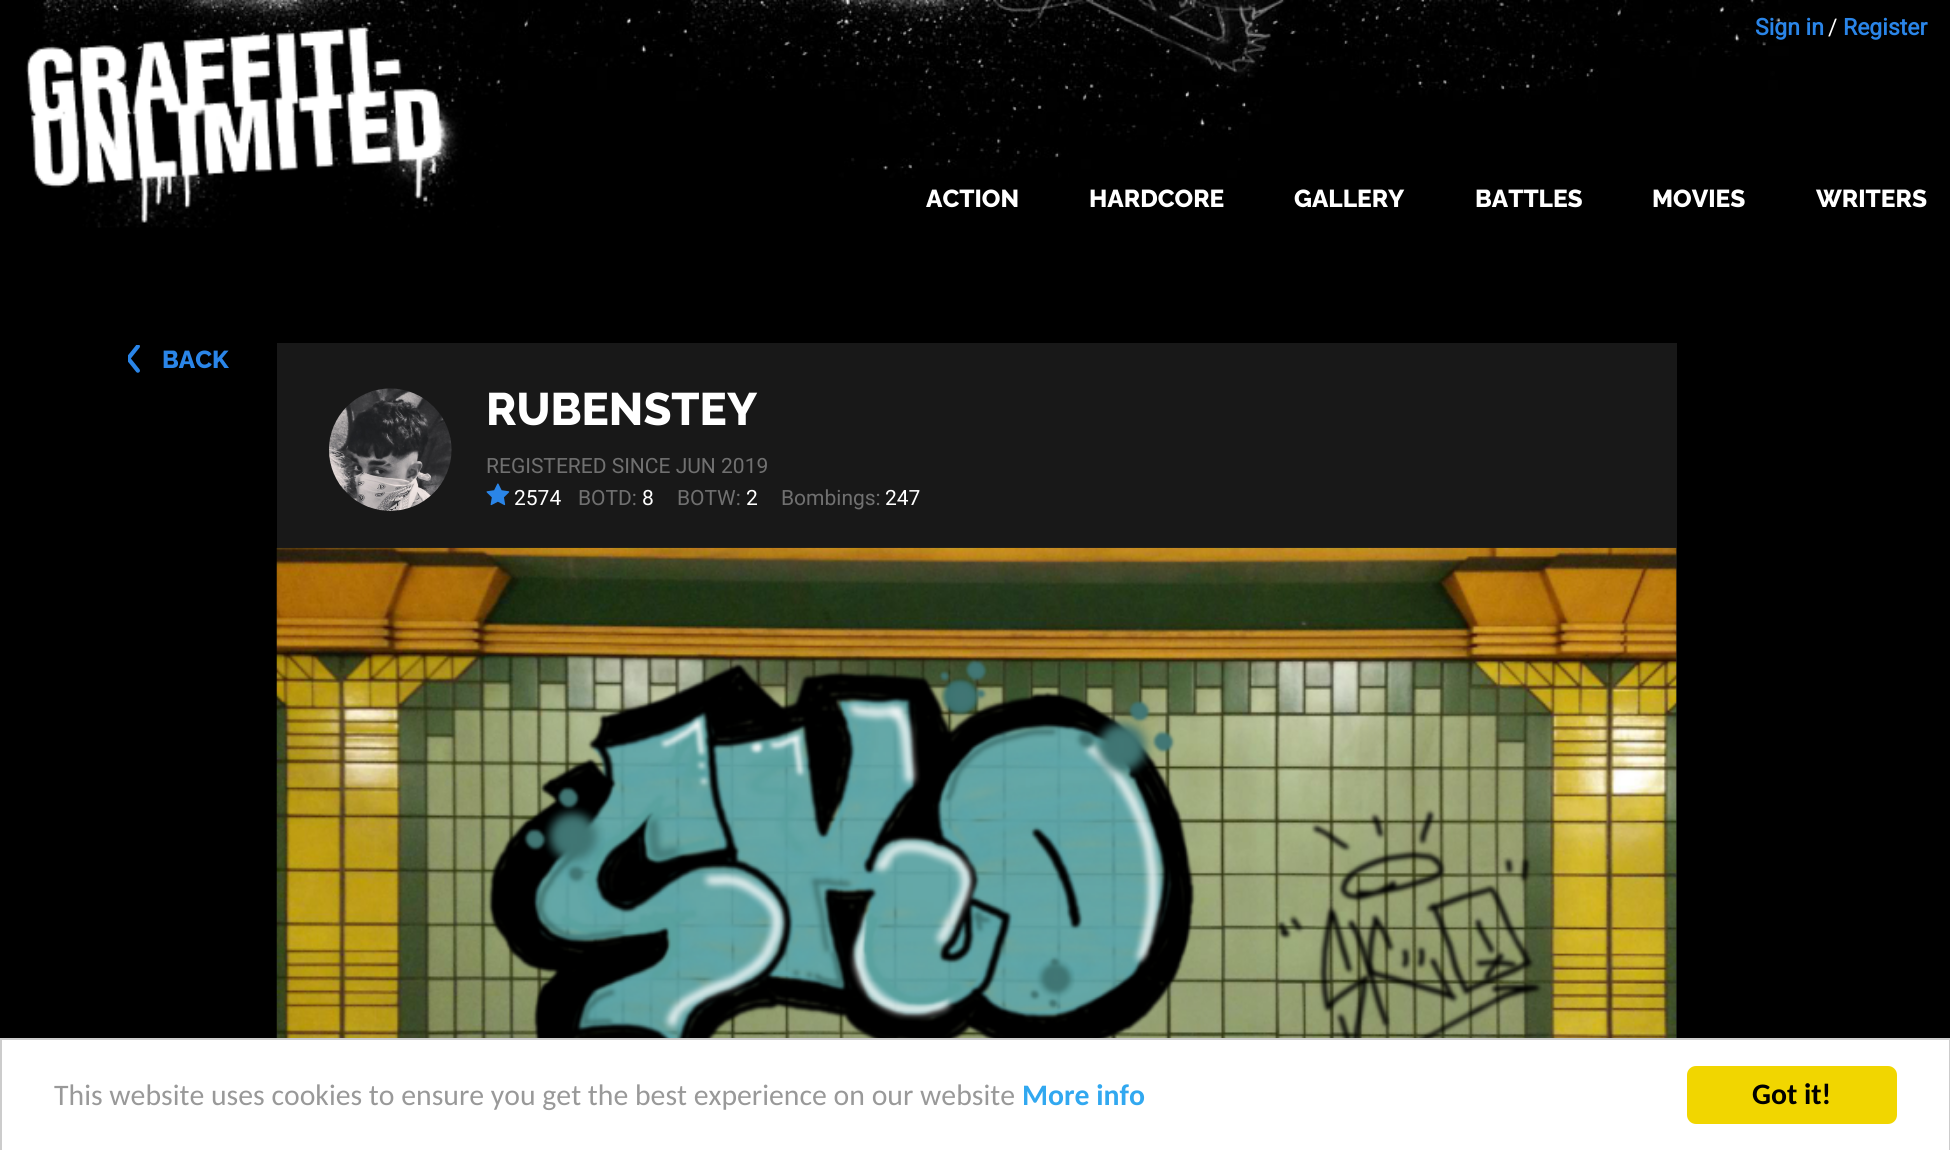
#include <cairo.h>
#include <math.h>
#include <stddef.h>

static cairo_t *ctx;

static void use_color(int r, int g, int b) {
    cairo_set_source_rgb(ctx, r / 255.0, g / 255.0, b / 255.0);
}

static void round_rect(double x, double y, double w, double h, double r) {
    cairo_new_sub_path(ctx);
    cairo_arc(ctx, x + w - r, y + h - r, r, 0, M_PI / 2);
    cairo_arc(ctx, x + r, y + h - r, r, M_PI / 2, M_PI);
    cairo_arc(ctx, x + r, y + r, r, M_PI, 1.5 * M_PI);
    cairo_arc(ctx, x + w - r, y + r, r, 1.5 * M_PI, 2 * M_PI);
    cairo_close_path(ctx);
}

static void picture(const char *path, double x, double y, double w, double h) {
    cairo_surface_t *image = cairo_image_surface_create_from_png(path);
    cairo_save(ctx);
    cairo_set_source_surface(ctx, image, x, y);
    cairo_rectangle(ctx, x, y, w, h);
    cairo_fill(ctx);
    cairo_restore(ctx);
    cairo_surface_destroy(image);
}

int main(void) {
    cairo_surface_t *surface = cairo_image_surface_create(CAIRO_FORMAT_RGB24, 1950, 1150);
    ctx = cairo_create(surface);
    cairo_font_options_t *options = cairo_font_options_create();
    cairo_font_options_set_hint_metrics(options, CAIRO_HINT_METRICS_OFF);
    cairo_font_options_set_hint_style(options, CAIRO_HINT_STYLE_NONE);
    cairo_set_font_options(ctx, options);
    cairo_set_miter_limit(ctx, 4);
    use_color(0, 0, 0);
    cairo_paint(ctx);
    picture("img1.png", 34, 0, 1763, 178);
    picture("img2.png", 26, 26, 481, 202);
    cairo_select_font_face(ctx, "Roboto", CAIRO_FONT_SLANT_NORMAL, CAIRO_FONT_WEIGHT_BOLD);
    cairo_set_font_size(ctx, 23);
    use_color(42, 133, 232);
    cairo_move_to(ctx, 1755, 35);
    cairo_show_text(ctx, "Sign in");
    cairo_select_font_face(ctx, "Roboto", CAIRO_FONT_SLANT_NORMAL, CAIRO_FONT_WEIGHT_NORMAL);
    use_color(255, 255, 255);
    cairo_move_to(ctx, 1828, 35);
    cairo_show_text(ctx, "/");
    cairo_select_font_face(ctx, "Roboto", CAIRO_FONT_SLANT_NORMAL, CAIRO_FONT_WEIGHT_BOLD);
    use_color(42, 133, 232);
    cairo_move_to(ctx, 1843, 35);
    cairo_show_text(ctx, "Register");
    cairo_set_source_rgba(ctx, 0, 0, 0, 0.3);
    cairo_rectangle(ctx, 883, 168, 129, 5);
    cairo_fill(ctx);
    cairo_select_font_face(ctx, "Raleway ExtraBold", CAIRO_FONT_SLANT_NORMAL, CAIRO_FONT_WEIGHT_NORMAL);
    cairo_set_font_size(ctx, 24.5);
    use_color(255, 255, 255);
    cairo_move_to(ctx, 926, 207);
    cairo_show_text(ctx, "ACTION");
    cairo_move_to(ctx, 1089, 207);
    cairo_show_text(ctx, "HARDCORE");
    cairo_move_to(ctx, 1294, 207);
    cairo_show_text(ctx, "GALLERY");
    cairo_move_to(ctx, 1475, 207);
    cairo_show_text(ctx, "BATTLES");
    cairo_move_to(ctx, 1652, 207);
    cairo_show_text(ctx, "MOVIES");
    cairo_move_to(ctx, 1816, 207);
    cairo_show_text(ctx, "WRITERS");
    picture("img3.png", 128, 345, 12, 28);
    use_color(42, 133, 232);
    cairo_move_to(ctx, 162, 368);
    cairo_show_text(ctx, "BACK");
    use_color(24, 24, 24);
    cairo_rectangle(ctx, 277, 343, 1400, 205);
    cairo_fill(ctx);
    picture("img4.png", 329, 388, 123, 123);
    cairo_set_font_size(ctx, 45.5);
    use_color(255, 255, 255);
    cairo_move_to(ctx, 486, 425);
    cairo_show_text(ctx, "RUBENSTEY");
    cairo_select_font_face(ctx, "Roboto", CAIRO_FONT_SLANT_NORMAL, CAIRO_FONT_WEIGHT_NORMAL);
    cairo_set_font_size(ctx, 21);
    use_color(112, 112, 112);
    cairo_move_to(ctx, 486, 473);
    cairo_show_text(ctx, "REGISTERED SINCE JUN 2019");
    picture("img5.png", 486, 483, 24, 23);
    use_color(255, 255, 255);
    cairo_move_to(ctx, 514, 505);
    cairo_show_text(ctx, "2574");
    use_color(112, 112, 112);
    cairo_move_to(ctx, 578, 505);
    cairo_show_text(ctx, "BOTD:");
    use_color(255, 255, 255);
    cairo_move_to(ctx, 642, 505);
    cairo_show_text(ctx, "8");
    use_color(112, 112, 112);
    cairo_move_to(ctx, 677, 505);
    cairo_show_text(ctx, "BOTW:");
    use_color(255, 255, 255);
    cairo_move_to(ctx, 746, 505);
    cairo_show_text(ctx, "2");
    use_color(112, 112, 112);
    cairo_move_to(ctx, 781, 505);
    cairo_show_text(ctx, "Bombings:");
    use_color(255, 255, 255);
    cairo_move_to(ctx, 885, 505);
    cairo_show_text(ctx, "247");
    use_color(24, 24, 24);
    cairo_rectangle(ctx, 1676, 548, 1, 490);
    cairo_fill(ctx);
    picture("img6.png", 276, 547, 1401, 491);
    use_color(255, 255, 255);
    cairo_rectangle(ctx, 1, 1039, 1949, 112);
    cairo_fill_preserve(ctx);
    use_color(204, 204, 204);
    cairo_stroke(ctx);
    cairo_select_font_face(ctx, "Carlito", CAIRO_FONT_SLANT_NORMAL, CAIRO_FONT_WEIGHT_NORMAL);
    cairo_set_font_size(ctx, 29.75);
    use_color(153, 153, 153);
    cairo_move_to(ctx, 54, 1105);
    cairo_show_text(ctx, "This website uses cookies to ensure you get the best experience on our website");
    cairo_select_font_face(ctx, "Carlito", CAIRO_FONT_SLANT_NORMAL, CAIRO_FONT_WEIGHT_BOLD);
    use_color(49, 168, 240);
    cairo_move_to(ctx, 1022, 1105);
    cairo_show_text(ctx, "More info");
    use_color(241, 214, 0);
    round_rect(1687, 1066, 210, 58, 9);
    cairo_fill(ctx);
    use_color(0, 0, 0);
    cairo_move_to(ctx, 1752, 1104);
    cairo_show_text(ctx, "Got it!");
    cairo_surface_write_to_png(surface, "result.png");
    cairo_font_options_destroy(options);
    cairo_destroy(ctx);
    cairo_surface_destroy(surface);
    return 0;
}
